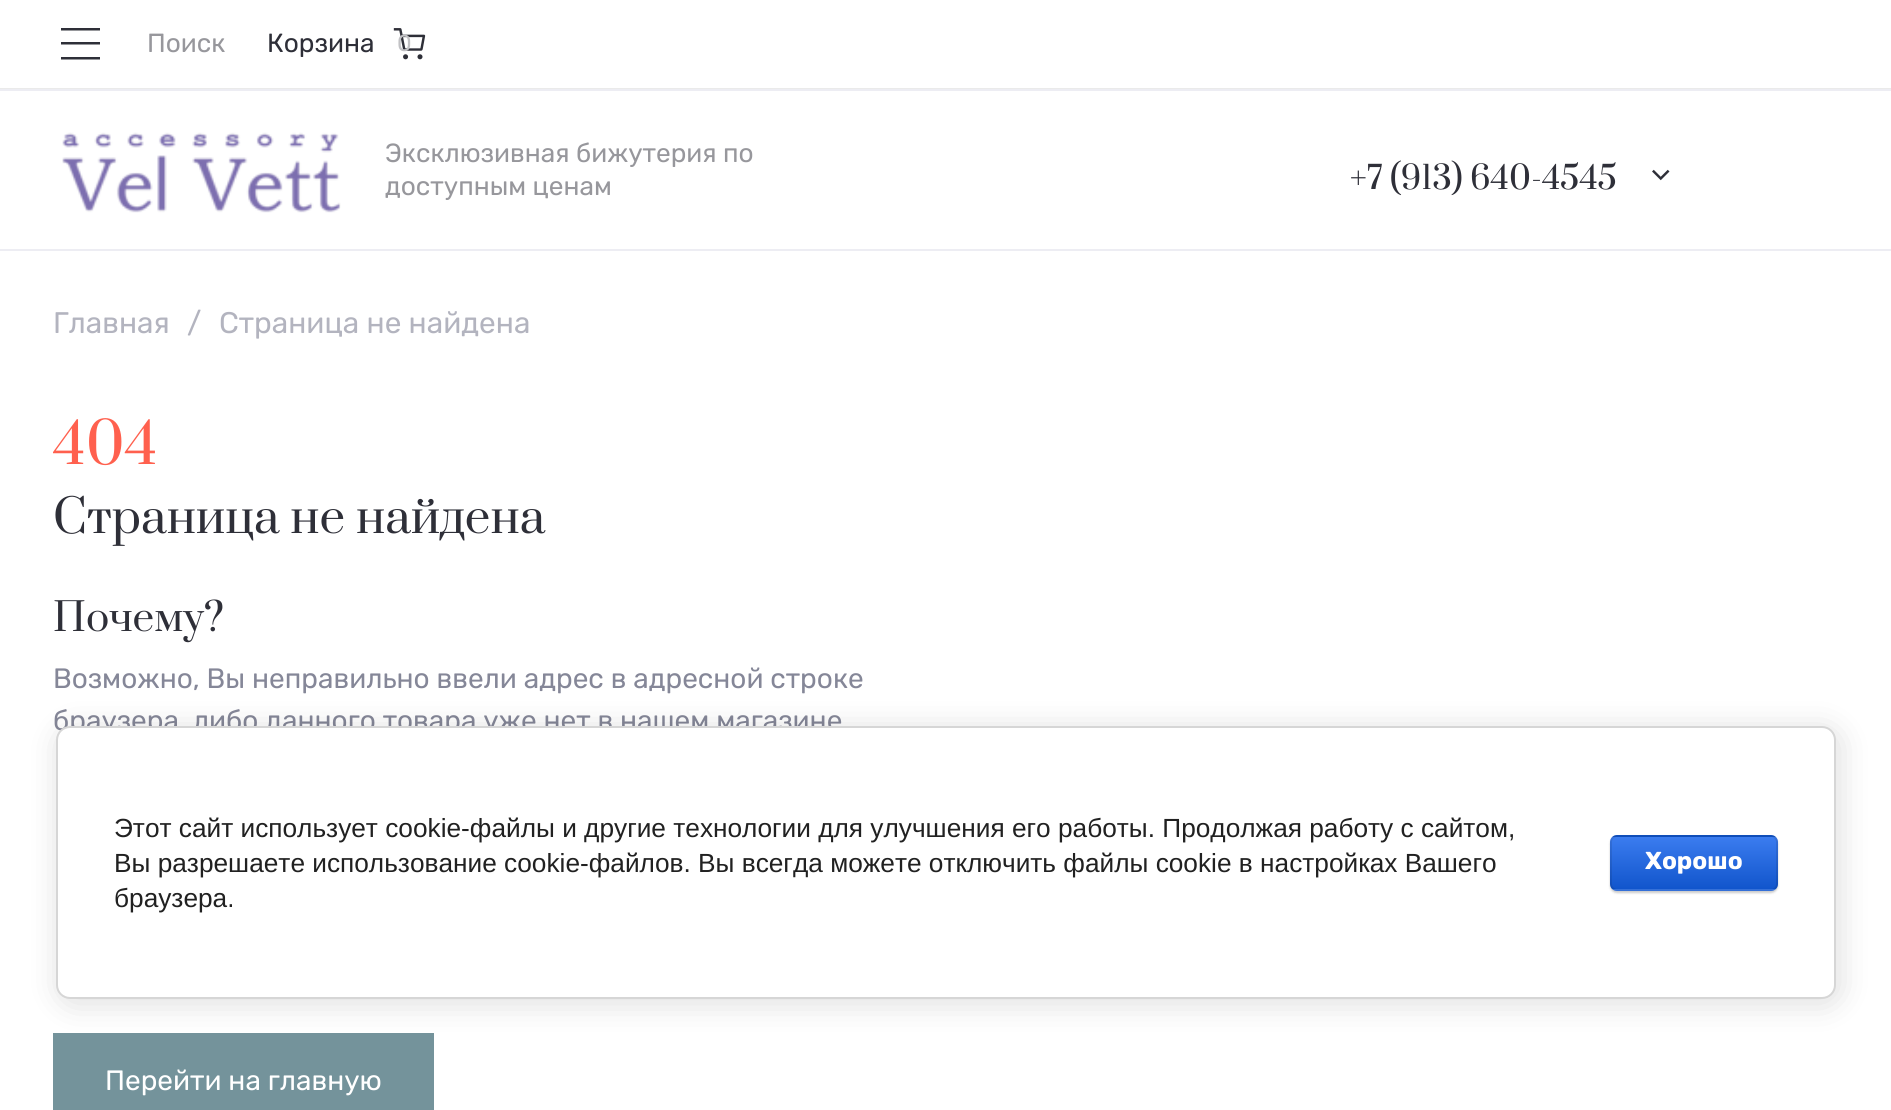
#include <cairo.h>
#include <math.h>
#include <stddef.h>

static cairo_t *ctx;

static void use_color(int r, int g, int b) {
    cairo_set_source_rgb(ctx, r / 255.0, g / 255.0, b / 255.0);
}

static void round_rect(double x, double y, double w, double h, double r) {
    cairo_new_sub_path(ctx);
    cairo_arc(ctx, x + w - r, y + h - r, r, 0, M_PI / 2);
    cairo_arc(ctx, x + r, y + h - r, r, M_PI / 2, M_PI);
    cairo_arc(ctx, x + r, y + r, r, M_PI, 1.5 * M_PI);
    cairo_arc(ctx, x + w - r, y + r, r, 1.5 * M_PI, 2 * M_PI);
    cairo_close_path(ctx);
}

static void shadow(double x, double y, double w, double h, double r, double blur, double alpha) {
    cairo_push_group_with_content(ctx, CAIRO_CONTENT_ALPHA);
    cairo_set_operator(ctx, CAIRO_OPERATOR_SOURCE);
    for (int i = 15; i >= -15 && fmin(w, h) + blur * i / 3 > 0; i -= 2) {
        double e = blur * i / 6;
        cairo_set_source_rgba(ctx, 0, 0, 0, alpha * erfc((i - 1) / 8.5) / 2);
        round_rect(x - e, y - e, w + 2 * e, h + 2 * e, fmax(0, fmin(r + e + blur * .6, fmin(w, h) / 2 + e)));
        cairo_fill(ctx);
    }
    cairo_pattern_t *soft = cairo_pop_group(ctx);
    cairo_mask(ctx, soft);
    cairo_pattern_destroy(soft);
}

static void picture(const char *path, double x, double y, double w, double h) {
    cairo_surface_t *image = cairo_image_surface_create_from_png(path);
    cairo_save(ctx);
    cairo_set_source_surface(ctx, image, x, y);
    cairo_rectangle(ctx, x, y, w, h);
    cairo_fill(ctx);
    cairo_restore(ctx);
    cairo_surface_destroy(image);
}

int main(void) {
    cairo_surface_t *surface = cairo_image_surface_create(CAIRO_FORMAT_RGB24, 1891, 1110);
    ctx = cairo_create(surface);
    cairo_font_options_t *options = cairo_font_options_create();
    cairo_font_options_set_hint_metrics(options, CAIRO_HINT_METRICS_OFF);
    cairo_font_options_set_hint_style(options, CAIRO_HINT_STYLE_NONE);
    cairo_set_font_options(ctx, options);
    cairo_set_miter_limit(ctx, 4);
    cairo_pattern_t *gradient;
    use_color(255, 255, 255);
    cairo_paint(ctx);
    use_color(234, 234, 234);
    cairo_rectangle(ctx, 0, 88, 1891, 1);
    cairo_fill(ctx);
    use_color(46, 47, 56);
    cairo_set_fill_rule(ctx, CAIRO_FILL_RULE_EVEN_ODD);
    cairo_new_path(ctx);
    cairo_move_to(ctx, 62.5, 28);
    cairo_line_to(ctx, 61, 28);
    cairo_line_to(ctx, 61, 30.5);
    cairo_line_to(ctx, 100, 30.5);
    cairo_line_to(ctx, 100, 28);
    cairo_close_path(ctx);
    cairo_move_to(ctx, 61, 42);
    cairo_line_to(ctx, 100, 42);
    cairo_line_to(ctx, 100, 44.5);
    cairo_line_to(ctx, 61, 44.5);
    cairo_close_path(ctx);
    cairo_move_to(ctx, 61, 57);
    cairo_line_to(ctx, 100, 57);
    cairo_line_to(ctx, 100, 59.5);
    cairo_line_to(ctx, 61, 59.5);
    cairo_close_path(ctx);
    cairo_fill(ctx);
    cairo_select_font_face(ctx, "Rubik", CAIRO_FONT_SLANT_NORMAL, CAIRO_FONT_WEIGHT_NORMAL);
    cairo_set_font_size(ctx, 26.25);
    use_color(151, 151, 156);
    cairo_move_to(ctx, 147, 52);
    cairo_show_text(ctx, "Поиск");
    use_color(46, 47, 56);
    cairo_move_to(ctx, 267, 52);
    cairo_show_text(ctx, "Корзина");
    picture("img1.png", 393, 28, 33, 32);
    cairo_set_font_size(ctx, 23);
    use_color(194, 194, 197);
    cairo_move_to(ctx, 397, 51);
    cairo_show_text(ctx, "0");
    use_color(237, 237, 243);
    cairo_rectangle(ctx, 0, 89, 1891, 2);
    cairo_fill(ctx);
    cairo_rectangle(ctx, 0, 249, 1891, 2);
    cairo_fill(ctx);
    picture("img2.png", 62, 132, 279, 81);
    cairo_set_font_size(ctx, 26.25);
    use_color(151, 151, 156);
    cairo_move_to(ctx, 385, 162);
    cairo_show_text(ctx, "Эксклюзивная бижутерия по");
    cairo_move_to(ctx, 385, 195);
    cairo_show_text(ctx, "доступным ценам");
    cairo_select_font_face(ctx, "Prata", CAIRO_FONT_SLANT_NORMAL, CAIRO_FONT_WEIGHT_NORMAL);
    cairo_set_font_size(ctx, 31.5);
    use_color(46, 47, 56);
    cairo_move_to(ctx, 1350, 189);
    cairo_show_text(ctx, "+7 (913) 640-4545");
    picture("img3.png", 1652, 169, 18, 12);
    cairo_select_font_face(ctx, "Rubik", CAIRO_FONT_SLANT_NORMAL, CAIRO_FONT_WEIGHT_NORMAL);
    cairo_set_font_size(ctx, 29.75);
    use_color(179, 180, 191);
    cairo_move_to(ctx, 53, 333);
    cairo_show_text(ctx, "Главная");
    cairo_move_to(ctx, 187, 333);
    cairo_show_text(ctx, "/");
    cairo_move_to(ctx, 219, 333);
    cairo_show_text(ctx, "Страница не найдена");
    cairo_select_font_face(ctx, "Prata", CAIRO_FONT_SLANT_NORMAL, CAIRO_FONT_WEIGHT_NORMAL);
    cairo_set_font_size(ctx, 56);
    use_color(255, 96, 78);
    cairo_move_to(ctx, 53, 464);
    cairo_show_text(ctx, "404");
    cairo_set_font_size(ctx, 45.5);
    use_color(46, 47, 56);
    cairo_move_to(ctx, 53, 533);
    cairo_show_text(ctx, "Страница не найдена");
    cairo_set_font_size(ctx, 38.5);
    cairo_move_to(ctx, 53, 631);
    cairo_show_text(ctx, "Почему?");
    cairo_select_font_face(ctx, "Rubik", CAIRO_FONT_SLANT_NORMAL, CAIRO_FONT_WEIGHT_NORMAL);
    cairo_set_font_size(ctx, 28);
    use_color(133, 135, 152);
    cairo_move_to(ctx, 53, 688);
    cairo_show_text(ctx, "Возможно, Вы неправильно ввели адрес в адресной строке");
    cairo_move_to(ctx, 53, 730);
    cairo_show_text(ctx, "браузера, либо данного товара уже нет в нашем магазине");
    use_color(116, 147, 155);
    cairo_rectangle(ctx, 53, 1033, 381, 77);
    cairo_fill(ctx);
    use_color(255, 255, 255);
    cairo_move_to(ctx, 105, 1090);
    cairo_show_text(ctx, "Перейти на главную");
    use_color(0, 0, 0);
    shadow(60, 730, 1779, 273, 14, 16, 0.14);
    use_color(255, 255, 255);
    round_rect(57, 727, 1778, 271, 13);
    cairo_fill_preserve(ctx);
    use_color(214, 214, 214);
    cairo_stroke(ctx);
    cairo_select_font_face(ctx, "Liberation Sans", CAIRO_FONT_SLANT_NORMAL, CAIRO_FONT_WEIGHT_NORMAL);
    cairo_set_font_size(ctx, 26.25);
    use_color(33, 33, 33);
    cairo_move_to(ctx, 114, 837);
    cairo_show_text(ctx, "Этот сайт использует cookie-файлы и другие технологии для улучшения его работы. Продолжая работу с сайтом,");
    cairo_move_to(ctx, 114, 872);
    cairo_show_text(ctx, "Вы разрешаете использование cookie-файлов. Вы всегда можете отключить файлы cookie в настройках Вашего");
    cairo_move_to(ctx, 114, 907);
    cairo_show_text(ctx, "браузера.");
    use_color(0, 0, 0);
    shadow(1610, 837, 168, 56, 7, 1, 0.2);
    cairo_save(ctx);
    cairo_set_fill_rule(ctx, CAIRO_FILL_RULE_WINDING);
    round_rect(1610, 835, 168, 56, 7);
    cairo_clip(ctx);
    gradient = cairo_pattern_create_linear(1694, 784, 1694, 837);
    cairo_pattern_add_color_stop_rgba(gradient, 0, 0.231, 0.486, 0.937, 1);
    cairo_pattern_add_color_stop_rgba(gradient, 1, 0.067, 0.333, 0.8, 1);
    cairo_set_source(ctx, gradient);
    cairo_pattern_destroy(gradient);
    cairo_rectangle(ctx, 1610, 835, 168, 2);
    cairo_fill(ctx);
    gradient = cairo_pattern_create_linear(1694, 837, 1694, 889);
    cairo_pattern_add_color_stop_rgba(gradient, 0, 0.231, 0.486, 0.937, 1);
    cairo_pattern_add_color_stop_rgba(gradient, 1, 0.067, 0.333, 0.8, 1);
    cairo_set_source(ctx, gradient);
    cairo_pattern_destroy(gradient);
    cairo_rectangle(ctx, 1610, 837, 168, 52);
    cairo_fill(ctx);
    gradient = cairo_pattern_create_linear(1694, 889, 1694, 942);
    cairo_pattern_add_color_stop_rgba(gradient, 0, 0.231, 0.486, 0.937, 1);
    cairo_pattern_add_color_stop_rgba(gradient, 1, 0.067, 0.333, 0.8, 1);
    cairo_set_source(ctx, gradient);
    cairo_pattern_destroy(gradient);
    cairo_rectangle(ctx, 1610, 889, 168, 2);
    cairo_fill(ctx);
    cairo_restore(ctx);
    round_rect(1611, 836, 166, 54, 6);
    cairo_set_source_rgba(ctx, 0, 0, 0, 0.1);
    cairo_stroke(ctx);
    cairo_select_font_face(ctx, "Rubik", CAIRO_FONT_SLANT_NORMAL, CAIRO_FONT_WEIGHT_BOLD);
    cairo_set_font_size(ctx, 24.5);
    use_color(255, 255, 255);
    cairo_move_to(ctx, 1645, 869);
    cairo_show_text(ctx, "Хорошо");
    cairo_surface_write_to_png(surface, "result.png");
    cairo_font_options_destroy(options);
    cairo_destroy(ctx);
    cairo_surface_destroy(surface);
    return 0;
}
